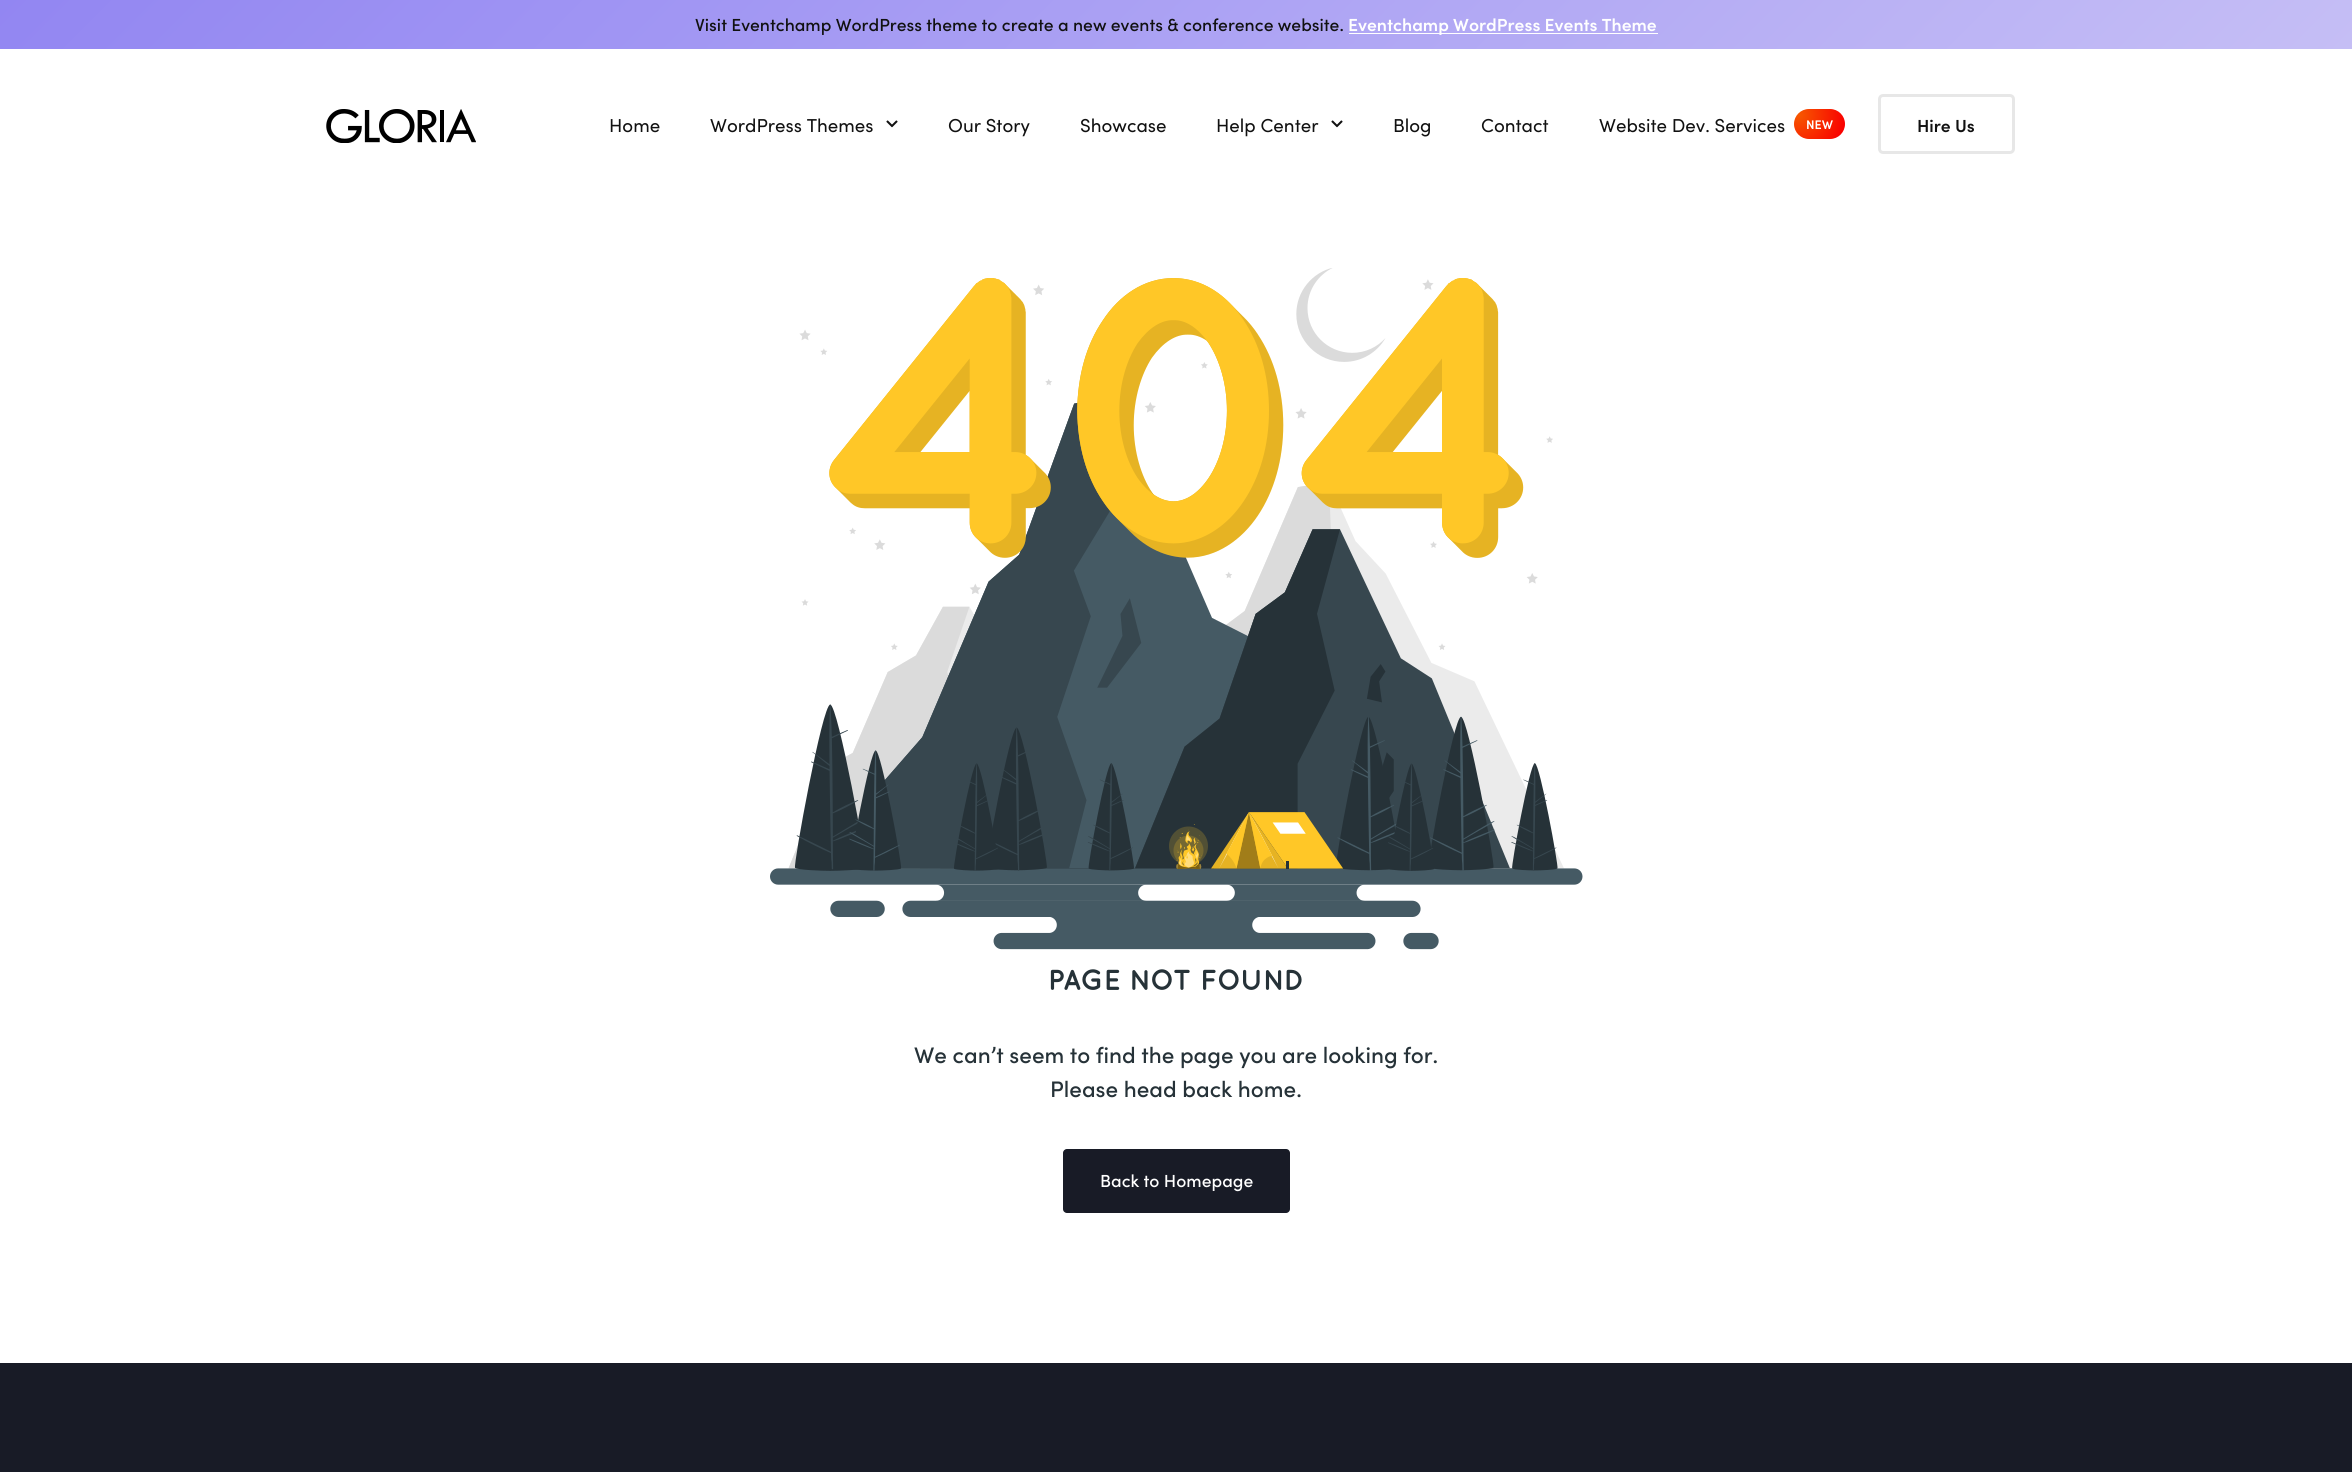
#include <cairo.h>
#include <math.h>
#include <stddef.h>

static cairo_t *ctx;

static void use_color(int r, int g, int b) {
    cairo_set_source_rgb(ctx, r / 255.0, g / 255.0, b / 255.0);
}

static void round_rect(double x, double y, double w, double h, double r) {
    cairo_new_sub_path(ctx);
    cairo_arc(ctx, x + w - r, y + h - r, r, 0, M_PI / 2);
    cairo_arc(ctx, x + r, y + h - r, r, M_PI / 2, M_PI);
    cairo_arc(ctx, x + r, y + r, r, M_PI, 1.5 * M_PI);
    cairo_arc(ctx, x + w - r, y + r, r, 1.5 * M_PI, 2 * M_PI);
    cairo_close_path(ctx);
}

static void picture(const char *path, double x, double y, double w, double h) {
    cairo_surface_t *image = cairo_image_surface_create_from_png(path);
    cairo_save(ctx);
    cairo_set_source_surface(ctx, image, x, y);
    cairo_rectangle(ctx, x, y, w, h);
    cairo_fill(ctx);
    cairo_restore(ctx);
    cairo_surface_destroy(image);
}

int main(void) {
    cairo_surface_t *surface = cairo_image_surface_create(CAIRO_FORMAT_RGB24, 2352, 1472);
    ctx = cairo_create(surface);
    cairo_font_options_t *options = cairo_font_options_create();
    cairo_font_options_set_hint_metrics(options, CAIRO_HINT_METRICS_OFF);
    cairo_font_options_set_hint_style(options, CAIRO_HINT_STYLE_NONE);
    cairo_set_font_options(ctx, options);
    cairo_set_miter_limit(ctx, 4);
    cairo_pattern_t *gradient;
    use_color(255, 255, 255);
    cairo_paint(ctx);
    gradient = cairo_pattern_create_linear(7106, 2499, 2304, -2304);
    cairo_pattern_add_color_stop_rgba(gradient, 0, 0.494, 0.835, 0.976, 1);
    cairo_pattern_add_color_stop_rgba(gradient, 0.25, 0.051, 0.894, 0.925, 1);
    cairo_pattern_add_color_stop_rgba(gradient, 0.5, 0.71, 0.651, 0.949, 1);
    cairo_pattern_add_color_stop_rgba(gradient, 0.75, 0.773, 0.745, 0.961, 1);
    cairo_pattern_add_color_stop_rgba(gradient, 1, 0.573, 0.525, 0.949, 1);
    cairo_set_source(ctx, gradient);
    cairo_pattern_destroy(gradient);
    cairo_rectangle(ctx, 0, 0, 2352, 49);
    cairo_fill(ctx);
    cairo_select_font_face(ctx, "Sofia Medium", CAIRO_FONT_SLANT_NORMAL, CAIRO_FONT_WEIGHT_NORMAL);
    cairo_set_font_size(ctx, 17.5);
    use_color(17, 17, 17);
    cairo_move_to(ctx, 695, 31);
    cairo_show_text(ctx, "Visit Eventchamp WordPress theme to create a new events & conference website.");
    use_color(255, 255, 255);
    cairo_rectangle(ctx, 1349, 33, 309, 1);
    cairo_fill(ctx);
    cairo_select_font_face(ctx, "Sofia SemiBold", CAIRO_FONT_SLANT_NORMAL, CAIRO_FONT_WEIGHT_NORMAL);
    cairo_move_to(ctx, 1348, 31);
    cairo_show_text(ctx, "Eventchamp WordPress Events Theme");
    picture("img1.png", 326, 109, 150, 34);
    cairo_select_font_face(ctx, "Sofia", CAIRO_FONT_SLANT_NORMAL, CAIRO_FONT_WEIGHT_NORMAL);
    cairo_set_font_size(ctx, 18.75);
    use_color(17, 17, 17);
    cairo_move_to(ctx, 609, 132);
    cairo_show_text(ctx, "Home");
    cairo_move_to(ctx, 710, 132);
    cairo_show_text(ctx, "WordPress Themes");
    picture("img2.png", 886, 120, 12, 8);
    cairo_move_to(ctx, 948, 132);
    cairo_show_text(ctx, "Our Story");
    cairo_move_to(ctx, 1080, 132);
    cairo_show_text(ctx, "Showcase");
    cairo_move_to(ctx, 1216, 132);
    cairo_show_text(ctx, "Help Center");
    picture("img2.png", 1331, 120, 12, 8);
    cairo_move_to(ctx, 1393, 132);
    cairo_show_text(ctx, "Blog");
    cairo_move_to(ctx, 1481, 132);
    cairo_show_text(ctx, "Contact");
    cairo_move_to(ctx, 1599, 132);
    cairo_show_text(ctx, "Website Dev. Services");
    gradient = cairo_pattern_create_radial(1799, 115, 0, 1799, 115, 52);
    cairo_pattern_add_color_stop_rgba(gradient, 0, 0.969, 0.341, 0, 1);
    cairo_pattern_add_color_stop_rgba(gradient, 0.9, 0.976, 0, 0, 1);
    cairo_set_source(ctx, gradient);
    cairo_pattern_destroy(gradient);
    round_rect(1794, 109, 51, 30, 15);
    cairo_fill(ctx);
    cairo_select_font_face(ctx, "Sofia SemiBold", CAIRO_FONT_SLANT_NORMAL, CAIRO_FONT_WEIGHT_NORMAL);
    cairo_set_font_size(ctx, 12.5);
    use_color(255, 255, 255);
    cairo_move_to(ctx, 1806, 129);
    cairo_show_text(ctx, "NEW");
    round_rect(1879.5, 95.5, 134, 57, 3.5);
    use_color(231, 231, 231);
    cairo_set_line_width(ctx, 3);
    cairo_stroke(ctx);
    cairo_set_font_size(ctx, 17.5);
    use_color(17, 17, 17);
    cairo_move_to(ctx, 1917, 132);
    cairo_show_text(ctx, "Hire Us");
    picture("img3.png", 770, 268, 813, 722);
    cairo_select_font_face(ctx, "Sofia Medium", CAIRO_FONT_SLANT_NORMAL, CAIRO_FONT_WEIGHT_NORMAL);
    cairo_set_font_size(ctx, 22.5);
    use_color(38, 50, 56);
    cairo_move_to(ctx, 914, 1063);
    cairo_show_text(ctx, "We can’t seem to find the page you are looking for.");
    cairo_move_to(ctx, 1050, 1097);
    cairo_show_text(ctx, "Please head back home.");
    use_color(24, 27, 38);
    round_rect(1063, 1149, 227, 64, 4);
    cairo_fill(ctx);
    cairo_set_font_size(ctx, 17.5);
    use_color(255, 255, 255);
    cairo_move_to(ctx, 1100, 1187);
    cairo_show_text(ctx, "Back to Homepage");
    use_color(24, 27, 38);
    cairo_rectangle(ctx, 0, 1363, 2352, 109);
    cairo_fill(ctx);
    cairo_surface_write_to_png(surface, "result.png");
    cairo_font_options_destroy(options);
    cairo_destroy(ctx);
    cairo_surface_destroy(surface);
    return 0;
}
